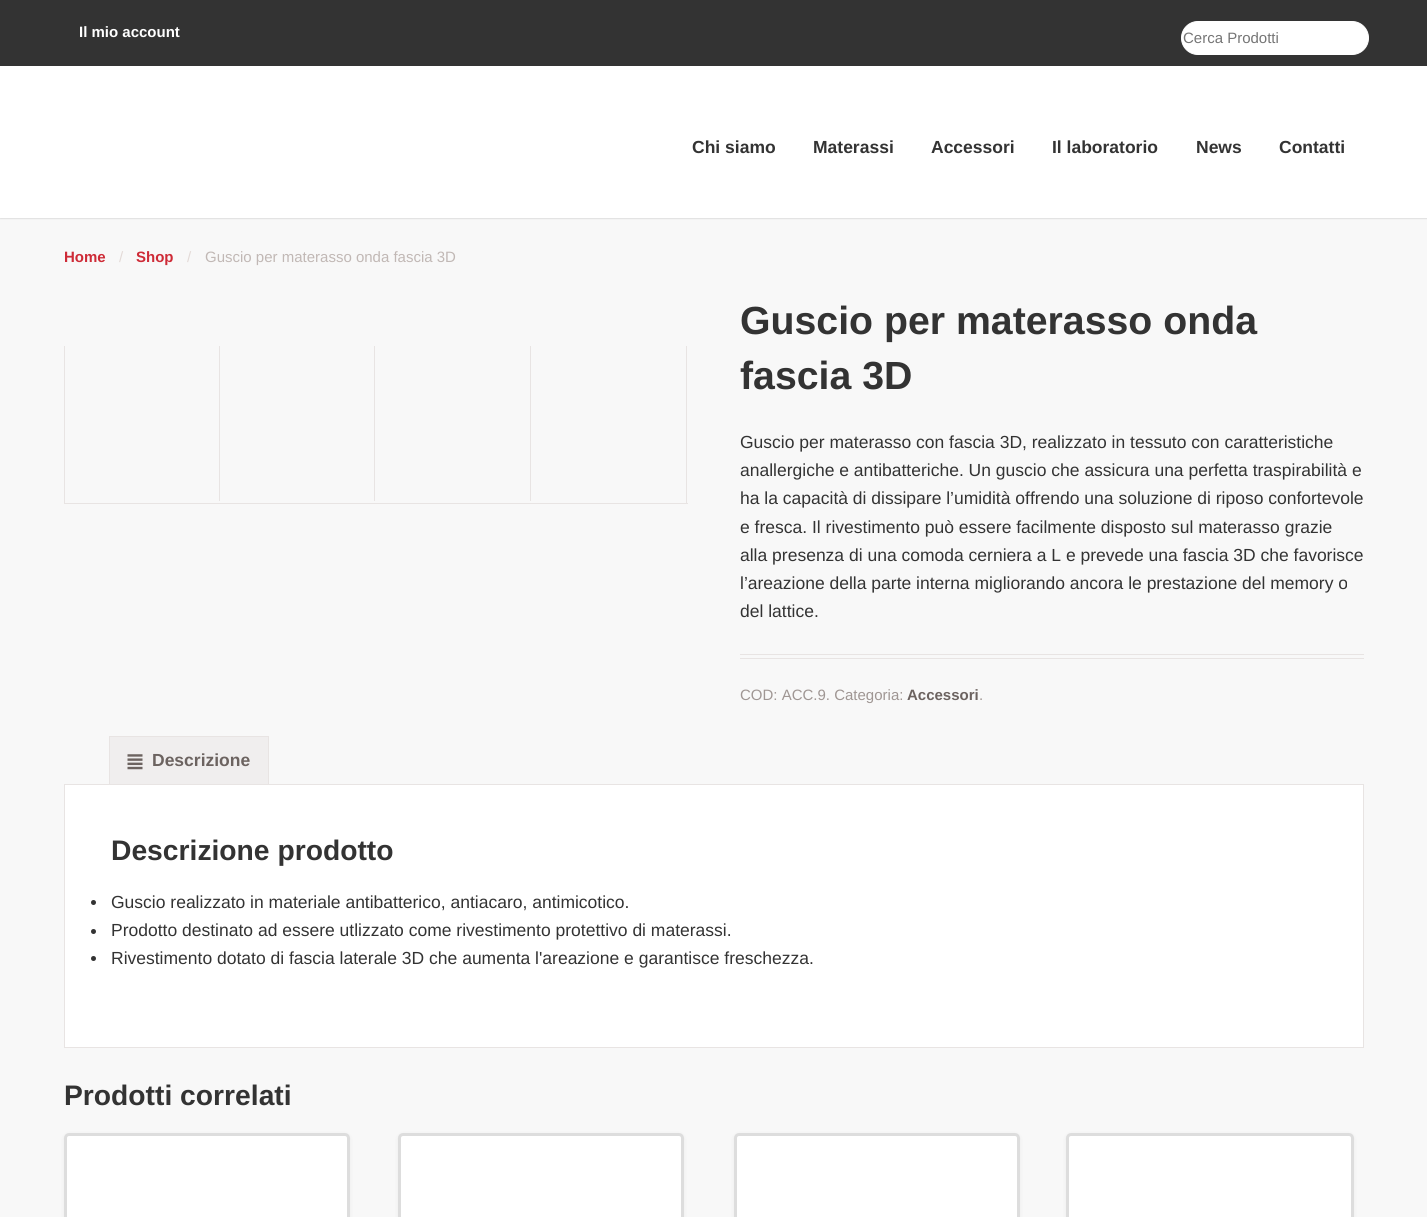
#include <cairo.h>
#include <math.h>
#include <stddef.h>

static cairo_t *ctx;

static void use_color(int r, int g, int b) {
    cairo_set_source_rgb(ctx, r / 255.0, g / 255.0, b / 255.0);
}

static void round_rect(double x, double y, double w, double h, double r) {
    cairo_new_sub_path(ctx);
    cairo_arc(ctx, x + w - r, y + h - r, r, 0, M_PI / 2);
    cairo_arc(ctx, x + r, y + h - r, r, M_PI / 2, M_PI);
    cairo_arc(ctx, x + r, y + r, r, M_PI, 1.5 * M_PI);
    cairo_arc(ctx, x + w - r, y + r, r, 1.5 * M_PI, 2 * M_PI);
    cairo_close_path(ctx);
}

static void shadow(double x, double y, double w, double h, double r, double blur, double alpha) {
    cairo_push_group_with_content(ctx, CAIRO_CONTENT_ALPHA);
    cairo_set_operator(ctx, CAIRO_OPERATOR_SOURCE);
    for (int i = 15; i >= -15 && fmin(w, h) + blur * i / 3 > 0; i -= 2) {
        double e = blur * i / 6;
        cairo_set_source_rgba(ctx, 0, 0, 0, alpha * erfc((i - 1) / 8.5) / 2);
        round_rect(x - e, y - e, w + 2 * e, h + 2 * e, fmax(0, fmin(r + e + blur * .6, fmin(w, h) / 2 + e)));
        cairo_fill(ctx);
    }
    cairo_pattern_t *soft = cairo_pop_group(ctx);
    cairo_mask(ctx, soft);
    cairo_pattern_destroy(soft);
}

static void picture(const char *path, double x, double y, double w, double h) {
    cairo_surface_t *image = cairo_image_surface_create_from_png(path);
    cairo_save(ctx);
    cairo_set_source_surface(ctx, image, x, y);
    cairo_rectangle(ctx, x, y, w, h);
    cairo_fill(ctx);
    cairo_restore(ctx);
    cairo_surface_destroy(image);
}

int main(void) {
    cairo_surface_t *surface = cairo_image_surface_create(CAIRO_FORMAT_RGB24, 1427, 1217);
    ctx = cairo_create(surface);
    cairo_font_options_t *options = cairo_font_options_create();
    cairo_font_options_set_hint_metrics(options, CAIRO_HINT_METRICS_OFF);
    cairo_font_options_set_hint_style(options, CAIRO_HINT_STYLE_NONE);
    cairo_set_font_options(ctx, options);
    cairo_set_miter_limit(ctx, 4);
    use_color(248, 248, 248);
    cairo_paint(ctx);
    use_color(51, 51, 51);
    cairo_rectangle(ctx, 0, 0, 1427, 66);
    cairo_fill(ctx);
    cairo_select_font_face(ctx, "Liberation Sans", CAIRO_FONT_SLANT_NORMAL, CAIRO_FONT_WEIGHT_BOLD);
    cairo_set_font_size(ctx, 15);
    use_color(255, 255, 255);
    cairo_move_to(ctx, 79, 37);
    cairo_show_text(ctx, "Il mio account");
    round_rect(1181.5, 21.5, 187, 33, 16.5);
    cairo_fill_preserve(ctx);
    cairo_set_line_width(ctx, 1);
    cairo_stroke(ctx);
    cairo_select_font_face(ctx, "Liberation Sans", CAIRO_FONT_SLANT_NORMAL, CAIRO_FONT_WEIGHT_NORMAL);
    use_color(117, 117, 117);
    cairo_move_to(ctx, 1183, 43);
    cairo_show_text(ctx, "Cerca Prodotti");
    use_color(0, 0, 0);
    shadow(0, 68, 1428, 151, 0, 0.5, 0.1);
    use_color(255, 255, 255);
    cairo_rectangle(ctx, 0, 66, 1427, 152);
    cairo_fill(ctx);
    cairo_select_font_face(ctx, "Liberation Sans", CAIRO_FONT_SLANT_NORMAL, CAIRO_FONT_WEIGHT_BOLD);
    cairo_set_font_size(ctx, 17.5);
    use_color(51, 51, 51);
    cairo_move_to(ctx, 692, 153);
    cairo_show_text(ctx, "Chi siamo");
    cairo_move_to(ctx, 813, 153);
    cairo_show_text(ctx, "Materassi");
    cairo_move_to(ctx, 931, 153);
    cairo_show_text(ctx, "Accessori");
    cairo_move_to(ctx, 1052, 153);
    cairo_show_text(ctx, "Il laboratorio");
    cairo_move_to(ctx, 1196, 153);
    cairo_show_text(ctx, "News");
    cairo_move_to(ctx, 1279, 153);
    cairo_show_text(ctx, "Contatti");
    cairo_set_font_size(ctx, 15);
    use_color(206, 43, 55);
    cairo_move_to(ctx, 64, 262);
    cairo_show_text(ctx, "Home");
    cairo_select_font_face(ctx, "Liberation Sans", CAIRO_FONT_SLANT_NORMAL, CAIRO_FONT_WEIGHT_NORMAL);
    use_color(227, 218, 215);
    cairo_move_to(ctx, 119, 262);
    cairo_show_text(ctx, "/");
    cairo_select_font_face(ctx, "Liberation Sans", CAIRO_FONT_SLANT_NORMAL, CAIRO_FONT_WEIGHT_BOLD);
    use_color(206, 43, 55);
    cairo_move_to(ctx, 136, 262);
    cairo_show_text(ctx, "Shop");
    cairo_select_font_face(ctx, "Liberation Sans", CAIRO_FONT_SLANT_NORMAL, CAIRO_FONT_WEIGHT_NORMAL);
    use_color(227, 218, 215);
    cairo_move_to(ctx, 187, 262);
    cairo_show_text(ctx, "/");
    use_color(193, 184, 181);
    cairo_move_to(ctx, 205, 262);
    cairo_show_text(ctx, "Guscio per materasso onda fascia 3D");
    use_color(232, 228, 227);
    cairo_rectangle(ctx, 686, 346, 1, 158);
    cairo_fill(ctx);
    cairo_rectangle(ctx, 64, 503, 624, 1);
    cairo_fill(ctx);
    cairo_rectangle(ctx, 64, 346, 1, 158);
    cairo_fill(ctx);
    cairo_rectangle(ctx, 219, 346, 1, 155);
    cairo_fill(ctx);
    cairo_rectangle(ctx, 374, 346, 1, 155);
    cairo_fill(ctx);
    cairo_rectangle(ctx, 530, 346, 1, 155);
    cairo_fill(ctx);
    cairo_select_font_face(ctx, "Liberation Sans", CAIRO_FONT_SLANT_NORMAL, CAIRO_FONT_WEIGHT_BOLD);
    cairo_set_font_size(ctx, 39.25);
    use_color(51, 51, 51);
    cairo_move_to(ctx, 740, 334);
    cairo_show_text(ctx, "Guscio per materasso onda");
    cairo_move_to(ctx, 740, 389);
    cairo_show_text(ctx, "fascia 3D");
    cairo_select_font_face(ctx, "Liberation Sans", CAIRO_FONT_SLANT_NORMAL, CAIRO_FONT_WEIGHT_NORMAL);
    cairo_set_font_size(ctx, 17.5);
    cairo_move_to(ctx, 740, 448);
    cairo_show_text(ctx, "Guscio per materasso con fascia 3D, realizzato in tessuto con caratteristiche");
    cairo_move_to(ctx, 740, 476);
    cairo_show_text(ctx, "anallergiche e antibatteriche. Un guscio che assicura una perfetta traspirabilità e");
    cairo_move_to(ctx, 740, 504);
    cairo_show_text(ctx, "ha la capacità di dissipare l’umidità offrendo una soluzione di riposo confortevole");
    cairo_move_to(ctx, 740, 533);
    cairo_show_text(ctx, "e fresca. Il rivestimento può essere facilmente disposto sul materasso grazie");
    cairo_move_to(ctx, 740, 561);
    cairo_show_text(ctx, "alla presenza di una comoda cerniera a L e prevede una fascia 3D che favorisce");
    cairo_move_to(ctx, 740, 589);
    cairo_show_text(ctx, "l’areazione della parte interna migliorando ancora le prestazione del memory o");
    cairo_move_to(ctx, 740, 617);
    cairo_show_text(ctx, "del lattice.");
    use_color(232, 228, 227);
    cairo_rectangle(ctx, 740, 654, 624, 1);
    cairo_fill(ctx);
    cairo_rectangle(ctx, 740, 658, 624, 1);
    cairo_fill(ctx);
    cairo_set_font_size(ctx, 15);
    use_color(159, 150, 147);
    cairo_move_to(ctx, 740, 700);
    cairo_show_text(ctx, "COD: ACC.9. Categoria:");
    cairo_select_font_face(ctx, "Liberation Sans", CAIRO_FONT_SLANT_NORMAL, CAIRO_FONT_WEIGHT_BOLD);
    use_color(108, 99, 96);
    cairo_move_to(ctx, 907, 700);
    cairo_show_text(ctx, "Accessori");
    cairo_select_font_face(ctx, "Liberation Sans", CAIRO_FONT_SLANT_NORMAL, CAIRO_FONT_WEIGHT_NORMAL);
    use_color(159, 150, 147);
    cairo_move_to(ctx, 979, 700);
    cairo_show_text(ctx, ".");
    use_color(240, 238, 238);
    cairo_rectangle(ctx, 110, 737, 158, 47);
    cairo_fill(ctx);
    use_color(232, 228, 227);
    cairo_rectangle(ctx, 109, 736, 160, 1);
    cairo_fill(ctx);
    cairo_rectangle(ctx, 268, 736, 1, 48);
    cairo_fill(ctx);
    cairo_rectangle(ctx, 109, 736, 1, 48);
    cairo_fill(ctx);
    picture("img1.png", 127, 754, 16, 16);
    cairo_select_font_face(ctx, "Liberation Sans", CAIRO_FONT_SLANT_NORMAL, CAIRO_FONT_WEIGHT_BOLD);
    cairo_set_font_size(ctx, 17.5);
    use_color(108, 99, 96);
    cairo_move_to(ctx, 152, 766);
    cairo_show_text(ctx, "Descrizione");
    use_color(255, 255, 255);
    cairo_rectangle(ctx, 64.5, 784.5, 1299, 263);
    cairo_fill_preserve(ctx);
    use_color(232, 228, 227);
    cairo_stroke(ctx);
    cairo_set_font_size(ctx, 28.25);
    use_color(51, 51, 51);
    cairo_move_to(ctx, 111, 860);
    cairo_show_text(ctx, "Descrizione prodotto");
    cairo_new_path(ctx);
    cairo_arc(ctx, 93.5, 902.5, 2.5, 0, 2 * M_PI);
    cairo_fill(ctx);
    cairo_select_font_face(ctx, "Liberation Sans", CAIRO_FONT_SLANT_NORMAL, CAIRO_FONT_WEIGHT_NORMAL);
    cairo_set_font_size(ctx, 17.5);
    cairo_move_to(ctx, 111, 908);
    cairo_show_text(ctx, "Guscio realizzato in materiale antibatterico, antiacaro, antimicotico.");
    cairo_new_path(ctx);
    cairo_arc(ctx, 93.5, 931.5, 2.5, 0, 2 * M_PI);
    cairo_fill(ctx);
    cairo_move_to(ctx, 111, 936);
    cairo_show_text(ctx, "Prodotto destinato ad essere utlizzato come rivestimento protettivo di materassi.");
    cairo_new_path(ctx);
    cairo_arc(ctx, 93.5, 958.5, 2.5, 0, 2 * M_PI);
    cairo_fill(ctx);
    cairo_move_to(ctx, 111, 964);
    cairo_show_text(ctx, "Rivestimento dotato di fascia laterale 3D che aumenta l'areazione e garantisce freschezza.");
    cairo_select_font_face(ctx, "Liberation Sans", CAIRO_FONT_SLANT_NORMAL, CAIRO_FONT_WEIGHT_BOLD);
    cairo_set_font_size(ctx, 28.25);
    cairo_move_to(ctx, 64, 1105);
    cairo_show_text(ctx, "Prodotti correlati");
    use_color(0, 0, 0);
    shadow(64, 1134, 286, 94, 5, 2, 0.06);
    use_color(255, 255, 255);
    round_rect(65.5, 1134.5, 283, 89, 3.5);
    cairo_fill_preserve(ctx);
    use_color(221, 221, 221);
    cairo_set_line_width(ctx, 3);
    cairo_stroke(ctx);
    use_color(0, 0, 0);
    shadow(398, 1134, 286, 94, 5, 2, 0.06);
    use_color(255, 255, 255);
    round_rect(399.5, 1134.5, 283, 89, 3.5);
    cairo_fill_preserve(ctx);
    use_color(221, 221, 221);
    cairo_stroke(ctx);
    use_color(0, 0, 0);
    shadow(734, 1134, 286, 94, 5, 2, 0.06);
    use_color(255, 255, 255);
    round_rect(735.5, 1134.5, 283, 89, 3.5);
    cairo_fill_preserve(ctx);
    use_color(221, 221, 221);
    cairo_stroke(ctx);
    use_color(0, 0, 0);
    shadow(1066, 1134, 288, 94, 5, 2, 0.06);
    use_color(255, 255, 255);
    round_rect(1067.5, 1134.5, 285, 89, 3.5);
    cairo_fill_preserve(ctx);
    use_color(221, 221, 221);
    cairo_stroke(ctx);
    cairo_surface_write_to_png(surface, "result.png");
    cairo_font_options_destroy(options);
    cairo_destroy(ctx);
    cairo_surface_destroy(surface);
    return 0;
}
